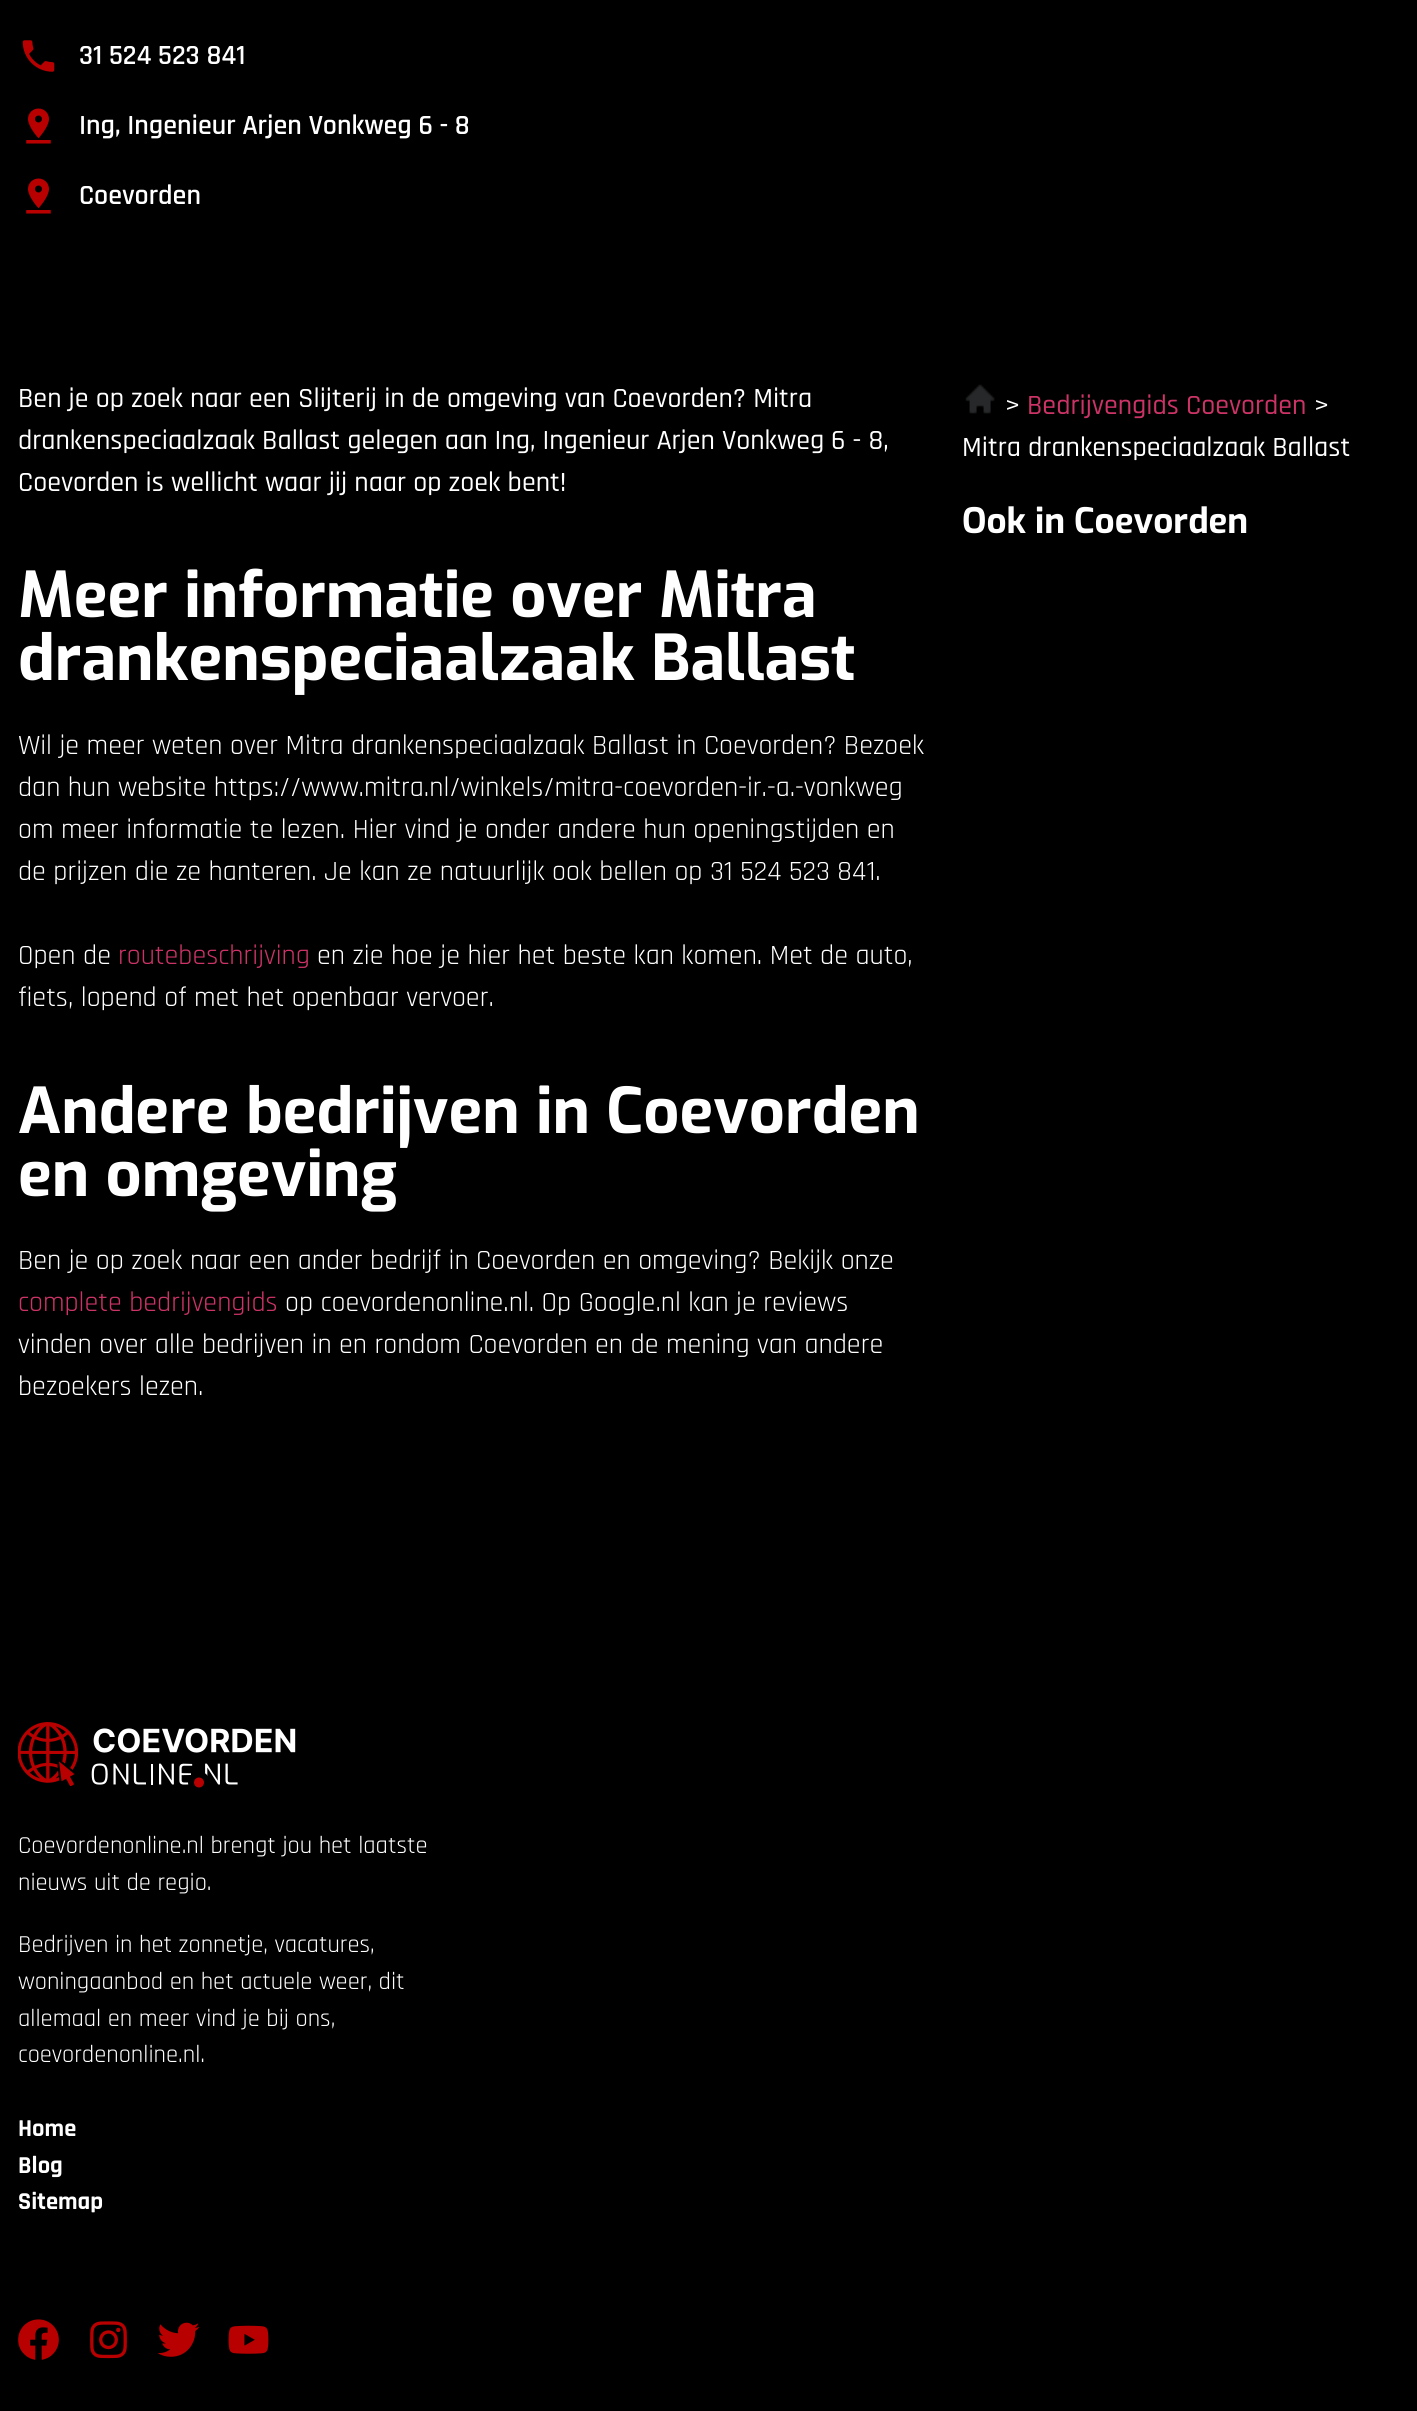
#include <cairo.h>
#include <math.h>
#include <stddef.h>

static cairo_t *ctx;

static void use_color(int r, int g, int b) {
    cairo_set_source_rgb(ctx, r / 255.0, g / 255.0, b / 255.0);
}

static void picture(const char *path, double x, double y, double w, double h) {
    cairo_surface_t *image = cairo_image_surface_create_from_png(path);
    cairo_save(ctx);
    cairo_set_source_surface(ctx, image, x, y);
    cairo_rectangle(ctx, x, y, w, h);
    cairo_fill(ctx);
    cairo_restore(ctx);
    cairo_surface_destroy(image);
}

int main(void) {
    cairo_surface_t *surface = cairo_image_surface_create(CAIRO_FORMAT_RGB24, 1417, 2411);
    ctx = cairo_create(surface);
    cairo_font_options_t *options = cairo_font_options_create();
    cairo_font_options_set_hint_metrics(options, CAIRO_HINT_METRICS_OFF);
    cairo_font_options_set_hint_style(options, CAIRO_HINT_STYLE_NONE);
    cairo_set_font_options(ctx, options);
    cairo_set_miter_limit(ctx, 4);
    use_color(0, 0, 0);
    cairo_paint(ctx);
    picture("img1.png", 22, 40, 33, 32);
    cairo_select_font_face(ctx, "Rajdhani SemiBold", CAIRO_FONT_SLANT_NORMAL, CAIRO_FONT_WEIGHT_NORMAL);
    cairo_set_font_size(ctx, 28);
    use_color(255, 255, 255);
    cairo_move_to(ctx, 79, 64);
    cairo_show_text(ctx, "31 524 523 841");
    picture("img2.png", 26, 108, 25, 36);
    cairo_move_to(ctx, 79, 134);
    cairo_show_text(ctx, "Ing, Ingenieur Arjen Vonkweg 6 - 8");
    picture("img2.png", 26, 178, 25, 36);
    cairo_move_to(ctx, 79, 204);
    cairo_show_text(ctx, "Coevorden");
    cairo_select_font_face(ctx, "Rajdhani Medium", CAIRO_FONT_SLANT_NORMAL, CAIRO_FONT_WEIGHT_NORMAL);
    cairo_move_to(ctx, 18, 407);
    cairo_show_text(ctx, "Ben je op zoek naar een Slijterij in de omgeving van Coevorden? Mitra");
    cairo_move_to(ctx, 18, 449);
    cairo_show_text(ctx, "drankenspeciaalzaak Ballast gelegen aan Ing, Ingenieur Arjen Vonkweg 6 - 8,");
    cairo_move_to(ctx, 18, 491);
    cairo_show_text(ctx, "Coevorden is wellicht waar jij naar op zoek bent!");
    cairo_select_font_face(ctx, "Exo", CAIRO_FONT_SLANT_NORMAL, CAIRO_FONT_WEIGHT_BOLD);
    cairo_set_font_size(ctx, 63);
    cairo_move_to(ctx, 18, 617);
    cairo_show_text(ctx, "Meer informatie over Mitra");
    cairo_move_to(ctx, 18, 680);
    cairo_show_text(ctx, "drankenspeciaalzaak Ballast");
    cairo_select_font_face(ctx, "Rajdhani", CAIRO_FONT_SLANT_NORMAL, CAIRO_FONT_WEIGHT_NORMAL);
    cairo_set_font_size(ctx, 28);
    cairo_move_to(ctx, 18, 754);
    cairo_show_text(ctx, "Wil je meer weten over Mitra drankenspeciaalzaak Ballast in Coevorden? Bezoek");
    cairo_move_to(ctx, 18, 796);
    cairo_show_text(ctx, "dan hun website https://www.mitra.nl/winkels/mitra-coevorden-ir.-a.-vonkweg");
    cairo_move_to(ctx, 18, 838);
    cairo_show_text(ctx, "om meer informatie te lezen. Hier vind je onder andere hun openingstijden en");
    cairo_move_to(ctx, 18, 880);
    cairo_show_text(ctx, "de prijzen die ze hanteren. Je kan ze natuurlijk ook bellen op 31 524 523 841.");
    cairo_move_to(ctx, 18, 964);
    cairo_show_text(ctx, "Open de");
    use_color(204, 51, 102);
    cairo_move_to(ctx, 118, 964);
    cairo_show_text(ctx, "routebeschrijving");
    use_color(255, 255, 255);
    cairo_move_to(ctx, 317, 964);
    cairo_show_text(ctx, "en zie hoe je hier het beste kan komen. Met de auto,");
    cairo_move_to(ctx, 18, 1006);
    cairo_show_text(ctx, "fiets, lopend of met het openbaar vervoer.");
    cairo_select_font_face(ctx, "Exo", CAIRO_FONT_SLANT_NORMAL, CAIRO_FONT_WEIGHT_BOLD);
    cairo_set_font_size(ctx, 63);
    cairo_move_to(ctx, 18, 1133);
    cairo_show_text(ctx, "Andere bedrijven in Coevorden");
    cairo_move_to(ctx, 18, 1196);
    cairo_show_text(ctx, "en omgeving");
    cairo_select_font_face(ctx, "Rajdhani", CAIRO_FONT_SLANT_NORMAL, CAIRO_FONT_WEIGHT_NORMAL);
    cairo_set_font_size(ctx, 28);
    cairo_move_to(ctx, 18, 1269);
    cairo_show_text(ctx, "Ben je op zoek naar een ander bedrijf in Coevorden en omgeving? Bekijk onze");
    use_color(204, 51, 102);
    cairo_move_to(ctx, 18, 1311);
    cairo_show_text(ctx, "complete bedrijvengids");
    use_color(255, 255, 255);
    cairo_move_to(ctx, 285, 1311);
    cairo_show_text(ctx, "op coevordenonline.nl. Op Google.nl kan je reviews");
    cairo_move_to(ctx, 18, 1353);
    cairo_show_text(ctx, "vinden over alle bedrijven in en rondom Coevorden en de mening van andere");
    cairo_move_to(ctx, 18, 1395);
    cairo_show_text(ctx, "bezoekers lezen.");
    picture("img3.png", 965, 384, 30, 30);
    cairo_select_font_face(ctx, "Rajdhani Medium", CAIRO_FONT_SLANT_NORMAL, CAIRO_FONT_WEIGHT_NORMAL);
    cairo_move_to(ctx, 1005, 414);
    cairo_show_text(ctx, ">");
    use_color(204, 51, 102);
    cairo_move_to(ctx, 1027, 414);
    cairo_show_text(ctx, "Bedrijvengids Coevorden");
    use_color(255, 255, 255);
    cairo_move_to(ctx, 1314, 414);
    cairo_show_text(ctx, ">");
    cairo_move_to(ctx, 962, 456);
    cairo_show_text(ctx, "Mitra drankenspeciaalzaak Ballast");
    cairo_select_font_face(ctx, "Exo", CAIRO_FONT_SLANT_NORMAL, CAIRO_FONT_WEIGHT_BOLD);
    cairo_set_font_size(ctx, 35);
    cairo_move_to(ctx, 962, 533);
    cairo_show_text(ctx, "Ook in Coevorden");
    picture("img4.png", 18, 1722, 278, 66);
    cairo_select_font_face(ctx, "Rajdhani", CAIRO_FONT_SLANT_NORMAL, CAIRO_FONT_WEIGHT_NORMAL);
    cairo_set_font_size(ctx, 24.5);
    cairo_move_to(ctx, 18, 1853);
    cairo_show_text(ctx, "Coevordenonline.nl brengt jou het laatste");
    cairo_move_to(ctx, 18, 1890);
    cairo_show_text(ctx, "nieuws uit de regio.");
    cairo_move_to(ctx, 18, 1952);
    cairo_show_text(ctx, "Bedrijven in het zonnetje, vacatures,");
    cairo_move_to(ctx, 18, 1989);
    cairo_show_text(ctx, "woningaanbod en het actuele weer, dit");
    cairo_move_to(ctx, 18, 2026);
    cairo_show_text(ctx, "allemaal en meer vind je bij ons,");
    cairo_move_to(ctx, 18, 2062);
    cairo_show_text(ctx, "coevordenonline.nl.");
    cairo_select_font_face(ctx, "Rajdhani", CAIRO_FONT_SLANT_NORMAL, CAIRO_FONT_WEIGHT_BOLD);
    cairo_move_to(ctx, 18, 2136);
    cairo_show_text(ctx, "Home");
    cairo_move_to(ctx, 18, 2173);
    cairo_show_text(ctx, "Blog");
    cairo_move_to(ctx, 18, 2209);
    cairo_show_text(ctx, "Sitemap");
    picture("img5.png", 18, 2319, 41, 41);
    picture("img6.png", 90, 2321, 37, 38);
    picture("img7.png", 158, 2322, 42, 35);
    picture("img8.png", 228, 2325, 41, 29);
    cairo_surface_write_to_png(surface, "result.png");
    cairo_font_options_destroy(options);
    cairo_destroy(ctx);
    cairo_surface_destroy(surface);
    return 0;
}
